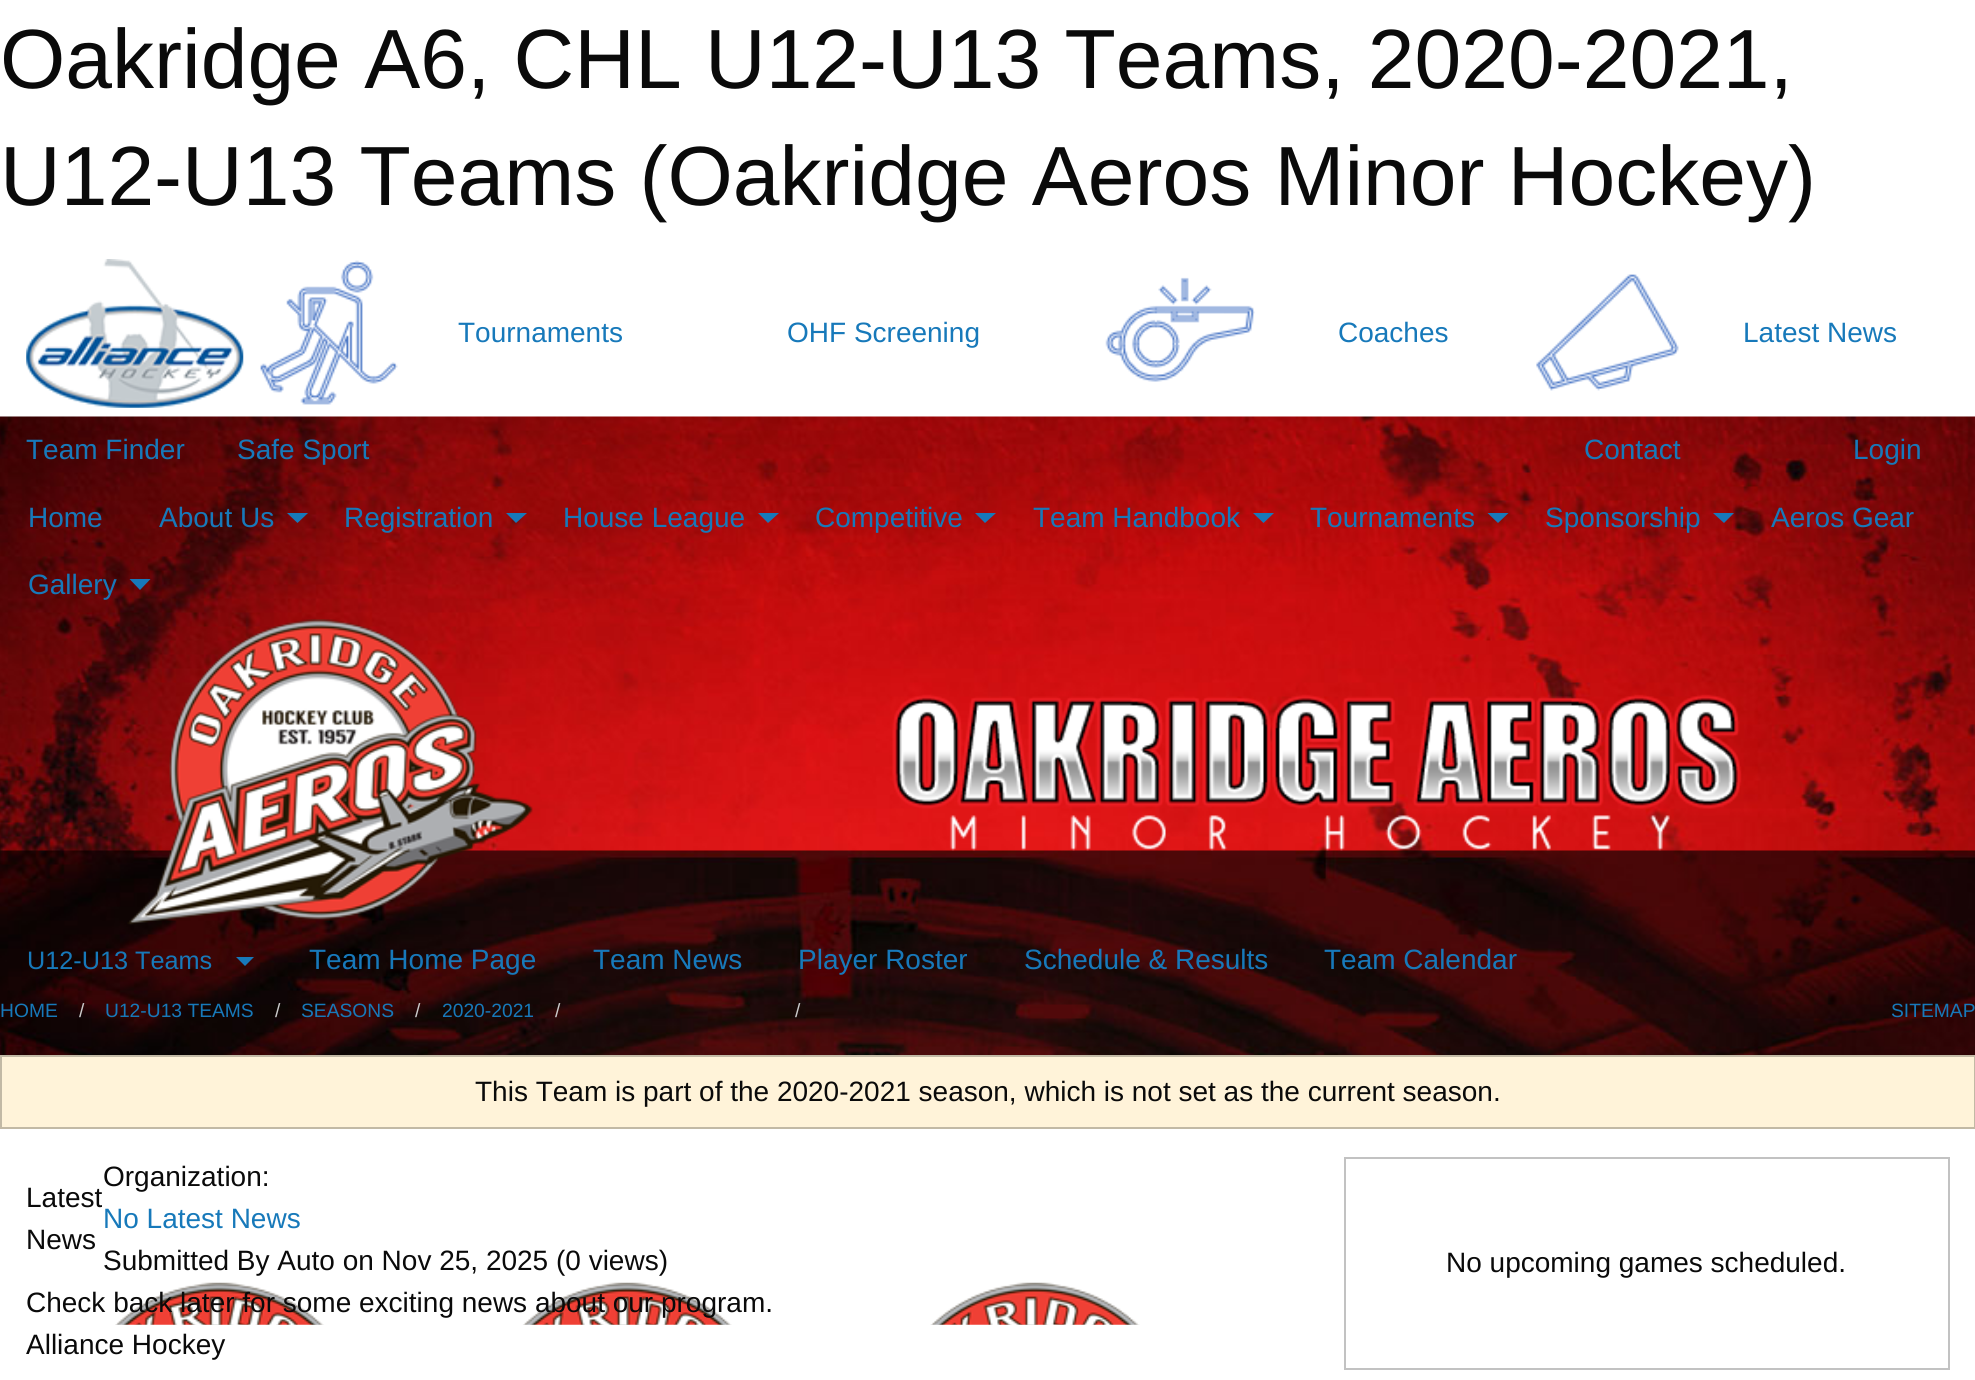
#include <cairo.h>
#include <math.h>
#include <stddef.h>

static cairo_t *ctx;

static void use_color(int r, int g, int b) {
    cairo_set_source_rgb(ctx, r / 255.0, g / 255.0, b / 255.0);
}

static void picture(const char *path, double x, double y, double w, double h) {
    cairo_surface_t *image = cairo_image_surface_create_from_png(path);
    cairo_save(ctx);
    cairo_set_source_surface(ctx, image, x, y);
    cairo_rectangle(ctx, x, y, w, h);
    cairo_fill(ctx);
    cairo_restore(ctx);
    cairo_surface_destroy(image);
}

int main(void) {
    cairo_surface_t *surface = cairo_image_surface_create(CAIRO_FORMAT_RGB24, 1975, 1380);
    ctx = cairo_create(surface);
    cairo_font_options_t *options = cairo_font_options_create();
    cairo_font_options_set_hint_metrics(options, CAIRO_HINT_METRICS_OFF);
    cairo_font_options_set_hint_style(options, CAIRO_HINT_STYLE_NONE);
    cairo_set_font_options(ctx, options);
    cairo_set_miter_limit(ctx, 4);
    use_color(255, 255, 255);
    cairo_paint(ctx);
    cairo_select_font_face(ctx, "Liberation Sans", CAIRO_FONT_SLANT_NORMAL, CAIRO_FONT_WEIGHT_NORMAL);
    cairo_set_font_size(ctx, 84);
    use_color(10, 10, 10);
    cairo_move_to(ctx, 0, 88);
    cairo_show_text(ctx, "Oakridge A6, CHL U12-U13 Teams, 2020-2021,");
    cairo_move_to(ctx, 0, 205);
    cairo_show_text(ctx, "U12-U13 Teams (Oakridge Aeros Minor Hockey)");
    picture("img1.png", 26, 259, 218, 149);
    picture("img2.png", 260, 260, 138, 145);
    cairo_set_font_size(ctx, 28);
    use_color(23, 121, 186);
    cairo_move_to(ctx, 458, 342);
    cairo_show_text(ctx, "Tournaments");
    cairo_move_to(ctx, 787, 342);
    cairo_show_text(ctx, "OHF Screening");
    picture("img3.png", 1105, 277, 150, 105);
    cairo_move_to(ctx, 1338, 342);
    cairo_show_text(ctx, "Coaches");
    picture("img4.png", 1536, 274, 143, 117);
    cairo_move_to(ctx, 1743, 342);
    cairo_show_text(ctx, "Latest News");
    picture("img5.png", 0, 416, 1975, 639);
    cairo_move_to(ctx, 26, 459);
    cairo_show_text(ctx, "Team Finder");
    cairo_move_to(ctx, 237, 459);
    cairo_show_text(ctx, "Safe Sport");
    cairo_move_to(ctx, 1584, 459);
    cairo_show_text(ctx, "Contact");
    cairo_move_to(ctx, 1853, 459);
    cairo_show_text(ctx, "Login");
    cairo_move_to(ctx, 28, 527);
    cairo_show_text(ctx, "Home");
    cairo_move_to(ctx, 159, 527);
    cairo_show_text(ctx, "About Us");
    cairo_new_path(ctx);
    cairo_move_to(ctx, 287, 513);
    cairo_line_to(ctx, 308, 513);
    cairo_line_to(ctx, 297.5, 523);
    cairo_close_path(ctx);
    cairo_fill(ctx);
    cairo_move_to(ctx, 344, 527);
    cairo_show_text(ctx, "Registration");
    cairo_new_path(ctx);
    cairo_move_to(ctx, 506, 513);
    cairo_line_to(ctx, 527, 513);
    cairo_line_to(ctx, 516, 523);
    cairo_close_path(ctx);
    cairo_fill(ctx);
    cairo_move_to(ctx, 563, 527);
    cairo_show_text(ctx, "House League");
    cairo_new_path(ctx);
    cairo_move_to(ctx, 758, 513);
    cairo_line_to(ctx, 779, 513);
    cairo_line_to(ctx, 768, 523);
    cairo_close_path(ctx);
    cairo_fill(ctx);
    cairo_move_to(ctx, 815, 527);
    cairo_show_text(ctx, "Competitive");
    cairo_new_path(ctx);
    cairo_move_to(ctx, 975, 513);
    cairo_line_to(ctx, 996, 513);
    cairo_line_to(ctx, 985, 523);
    cairo_close_path(ctx);
    cairo_fill(ctx);
    cairo_move_to(ctx, 1033, 527);
    cairo_show_text(ctx, "Team Handbook");
    cairo_new_path(ctx);
    cairo_move_to(ctx, 1253, 513);
    cairo_line_to(ctx, 1274, 513);
    cairo_line_to(ctx, 1263.5, 523);
    cairo_close_path(ctx);
    cairo_fill(ctx);
    cairo_move_to(ctx, 1310, 527);
    cairo_show_text(ctx, "Tournaments");
    cairo_new_path(ctx);
    cairo_move_to(ctx, 1487.5, 513);
    cairo_line_to(ctx, 1508.5, 513);
    cairo_line_to(ctx, 1498, 523);
    cairo_close_path(ctx);
    cairo_fill(ctx);
    cairo_move_to(ctx, 1545, 527);
    cairo_show_text(ctx, "Sponsorship");
    cairo_new_path(ctx);
    cairo_move_to(ctx, 1713, 513);
    cairo_line_to(ctx, 1734, 513);
    cairo_line_to(ctx, 1724, 523);
    cairo_close_path(ctx);
    cairo_fill(ctx);
    cairo_move_to(ctx, 1771, 527);
    cairo_show_text(ctx, "Aeros Gear");
    cairo_move_to(ctx, 28, 594);
    cairo_show_text(ctx, "Gallery");
    cairo_new_path(ctx);
    cairo_move_to(ctx, 129.5, 579);
    cairo_line_to(ctx, 150.5, 579);
    cairo_line_to(ctx, 140, 590);
    cairo_close_path(ctx);
    cairo_fill(ctx);
    picture("img6.png", 127, 619, 406, 306);
    picture("img7.png", 892, 694, 850, 157);
    cairo_set_font_size(ctx, 25.25);
    cairo_move_to(ctx, 27, 969);
    cairo_show_text(ctx, "U12-U13 Teams");
    cairo_new_path(ctx);
    cairo_move_to(ctx, 236, 957);
    cairo_line_to(ctx, 254, 957);
    cairo_line_to(ctx, 245, 966);
    cairo_close_path(ctx);
    cairo_fill(ctx);
    cairo_set_font_size(ctx, 28);
    cairo_move_to(ctx, 309, 969);
    cairo_show_text(ctx, "Team Home Page");
    cairo_move_to(ctx, 593, 969);
    cairo_show_text(ctx, "Team News");
    cairo_move_to(ctx, 798, 969);
    cairo_show_text(ctx, "Player Roster");
    cairo_move_to(ctx, 1024, 969);
    cairo_show_text(ctx, "Schedule & Results");
    cairo_move_to(ctx, 1324, 969);
    cairo_show_text(ctx, "Team Calendar");
    cairo_set_font_size(ctx, 19.25);
    cairo_move_to(ctx, 0, 1017);
    cairo_show_text(ctx, "HOME");
    use_color(202, 202, 202);
    cairo_move_to(ctx, 79, 1017);
    cairo_show_text(ctx, "/");
    use_color(23, 121, 186);
    cairo_move_to(ctx, 105, 1017);
    cairo_show_text(ctx, "U12-U13 TEAMS");
    use_color(202, 202, 202);
    cairo_move_to(ctx, 275, 1017);
    cairo_show_text(ctx, "/");
    use_color(23, 121, 186);
    cairo_move_to(ctx, 301, 1017);
    cairo_show_text(ctx, "SEASONS");
    use_color(202, 202, 202);
    cairo_move_to(ctx, 415, 1017);
    cairo_show_text(ctx, "/");
    use_color(23, 121, 186);
    cairo_move_to(ctx, 442, 1017);
    cairo_show_text(ctx, "2020-2021");
    use_color(202, 202, 202);
    cairo_move_to(ctx, 555, 1017);
    cairo_show_text(ctx, "/");
    cairo_move_to(ctx, 795, 1017);
    cairo_show_text(ctx, "/");
    use_color(23, 121, 186);
    cairo_move_to(ctx, 1891, 1017);
    cairo_show_text(ctx, "SITEMAP");
    use_color(255, 243, 217);
    cairo_rectangle(ctx, 1, 1056, 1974, 72);
    cairo_fill_preserve(ctx);
    use_color(194, 185, 165);
    cairo_stroke(ctx);
    cairo_set_font_size(ctx, 28);
    use_color(10, 10, 10);
    cairo_move_to(ctx, 475, 1101);
    cairo_show_text(ctx, "This Team is part of the 2020-2021 season, which is not set as the current season.");
    cairo_move_to(ctx, 26, 1207);
    cairo_show_text(ctx, "Latest");
    cairo_move_to(ctx, 26, 1249);
    cairo_show_text(ctx, "News");
    cairo_move_to(ctx, 103, 1186);
    cairo_show_text(ctx, "Organization:");
    use_color(23, 121, 186);
    cairo_move_to(ctx, 103, 1228);
    cairo_show_text(ctx, "No Latest News");
    use_color(10, 10, 10);
    cairo_move_to(ctx, 103, 1270);
    cairo_show_text(ctx, "Submitted By Auto on Nov 25, 2025 (0 views)");
    picture("img8.png", 115, 1282, 1025, 43);
    cairo_move_to(ctx, 26, 1312);
    cairo_show_text(ctx, "Check back later for some exciting news about our program.");
    cairo_move_to(ctx, 26, 1354);
    cairo_show_text(ctx, "Alliance Hockey");
    cairo_rectangle(ctx, 1345, 1158, 604, 211);
    use_color(194, 194, 194);
    cairo_stroke(ctx);
    use_color(10, 10, 10);
    cairo_move_to(ctx, 1446, 1272);
    cairo_show_text(ctx, "No upcoming games scheduled.");
    cairo_surface_write_to_png(surface, "result.png");
    cairo_font_options_destroy(options);
    cairo_destroy(ctx);
    cairo_surface_destroy(surface);
    return 0;
}
